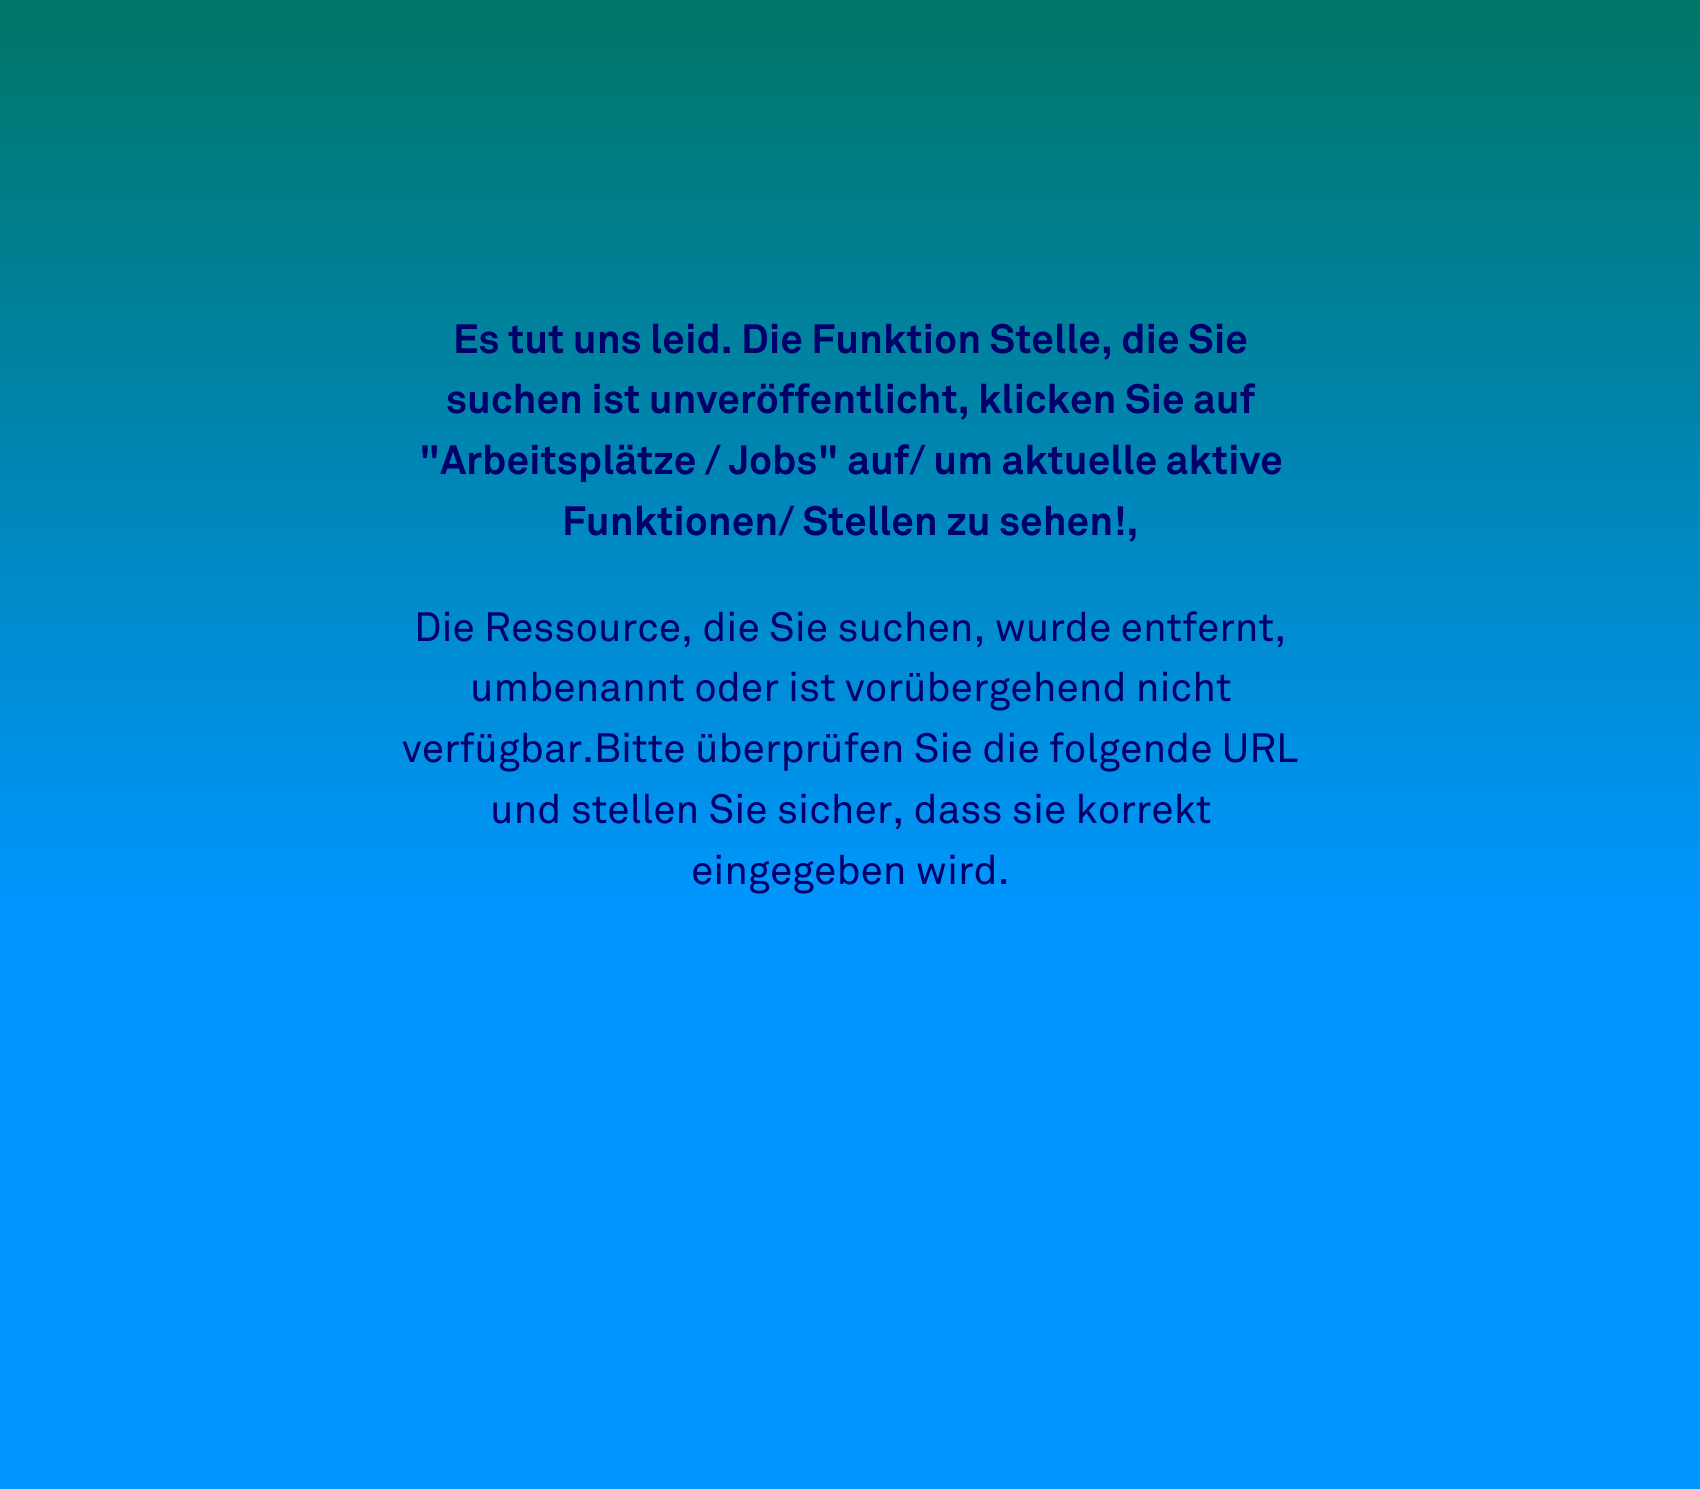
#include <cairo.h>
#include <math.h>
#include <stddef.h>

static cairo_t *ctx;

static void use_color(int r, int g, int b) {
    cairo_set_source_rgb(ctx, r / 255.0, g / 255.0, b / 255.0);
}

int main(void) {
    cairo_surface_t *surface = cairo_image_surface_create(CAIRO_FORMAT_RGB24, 1700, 1489);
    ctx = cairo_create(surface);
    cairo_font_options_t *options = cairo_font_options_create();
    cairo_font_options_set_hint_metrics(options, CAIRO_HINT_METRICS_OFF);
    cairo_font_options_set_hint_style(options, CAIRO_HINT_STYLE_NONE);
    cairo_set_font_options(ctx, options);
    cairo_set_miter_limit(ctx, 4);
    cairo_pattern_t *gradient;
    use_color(0, 150, 255);
    cairo_paint(ctx);
    gradient = cairo_pattern_create_linear(851, 916, 851, -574);
    cairo_pattern_add_color_stop_rgba(gradient, 0, 0, 0.588, 1, 1);
    cairo_pattern_add_color_stop_rgba(gradient, 1, 0, 0.38, 0.024, 1);
    cairo_set_source(ctx, gradient);
    cairo_pattern_destroy(gradient);
    cairo_rectangle(ctx, 0, 0, 1700, 901);
    cairo_fill(ctx);
    cairo_select_font_face(ctx, "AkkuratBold", CAIRO_FONT_SLANT_NORMAL, CAIRO_FONT_WEIGHT_BOLD);
    cairo_set_font_size(ctx, 40.5);
    use_color(0, 0, 107);
    cairo_move_to(ctx, 453, 353);
    cairo_show_text(ctx, "Es tut uns leid. Die Funktion Stelle, die Sie");
    cairo_move_to(ctx, 446, 413);
    cairo_show_text(ctx, "suchen ist unveröffentlicht, klicken Sie auf");
    cairo_move_to(ctx, 419, 474);
    cairo_show_text(ctx, "\"Arbeitsplätze / Jobs\" auf/ um aktuelle aktive");
    cairo_move_to(ctx, 562, 535);
    cairo_show_text(ctx, "Funktionen/ Stellen zu sehen!,");
    cairo_select_font_face(ctx, "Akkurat", CAIRO_FONT_SLANT_NORMAL, CAIRO_FONT_WEIGHT_NORMAL);
    cairo_move_to(ctx, 414, 641);
    cairo_show_text(ctx, "Die Ressource, die Sie suchen, wurde entfernt,");
    cairo_move_to(ctx, 470, 701);
    cairo_show_text(ctx, "umbenannt oder ist vorübergehend nicht");
    cairo_move_to(ctx, 402, 762);
    cairo_show_text(ctx, "verfügbar.Bitte überprüfen Sie die folgende URL");
    cairo_move_to(ctx, 490, 823);
    cairo_show_text(ctx, "und stellen Sie sicher, dass sie korrekt");
    cairo_move_to(ctx, 691, 884);
    cairo_show_text(ctx, "eingegeben wird.");
    cairo_surface_write_to_png(surface, "result.png");
    cairo_font_options_destroy(options);
    cairo_destroy(ctx);
    cairo_surface_destroy(surface);
    return 0;
}
